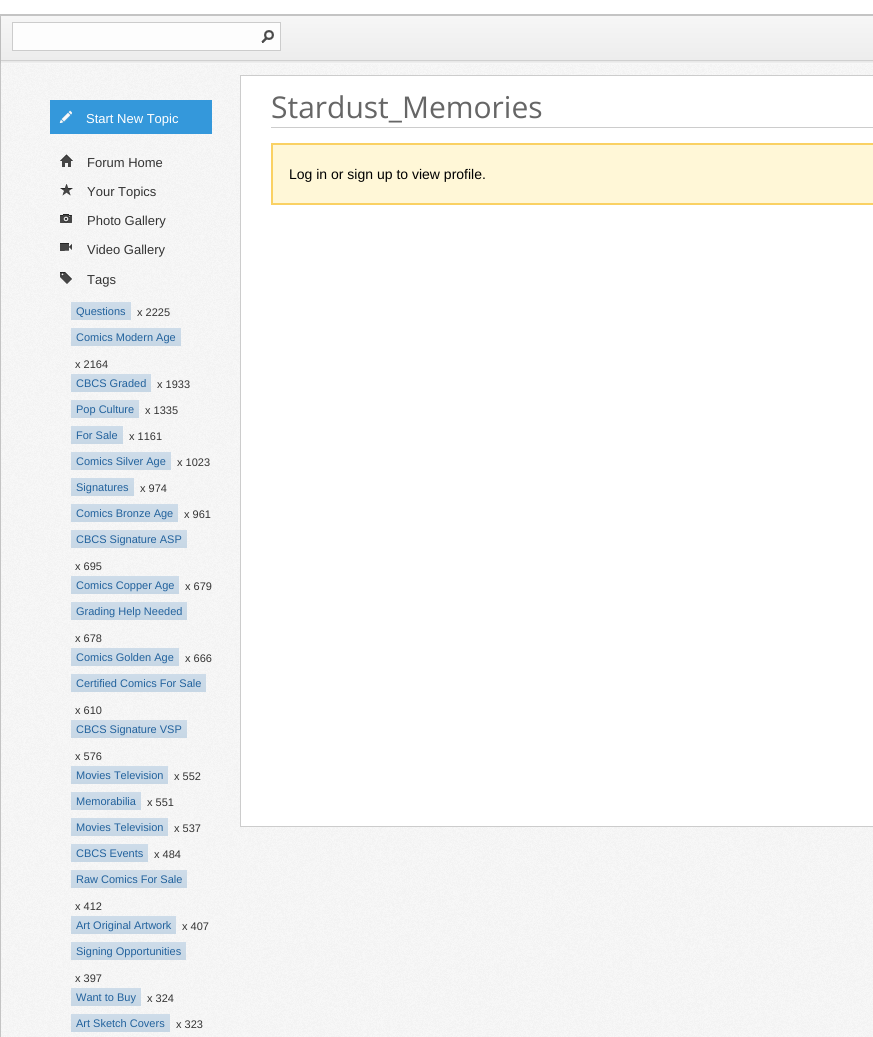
#include <cairo.h>
#include <math.h>
#include <stddef.h>

static cairo_t *ctx;

static void use_color(int r, int g, int b) {
    cairo_set_source_rgb(ctx, r / 255.0, g / 255.0, b / 255.0);
}

static void round_rect(double x, double y, double w, double h, double r) {
    cairo_new_sub_path(ctx);
    cairo_arc(ctx, x + w - r, y + h - r, r, 0, M_PI / 2);
    cairo_arc(ctx, x + r, y + h - r, r, M_PI / 2, M_PI);
    cairo_arc(ctx, x + r, y + r, r, M_PI, 1.5 * M_PI);
    cairo_arc(ctx, x + w - r, y + r, r, 1.5 * M_PI, 2 * M_PI);
    cairo_close_path(ctx);
}

static void shadow(double x, double y, double w, double h, double r, double blur, double alpha) {
    cairo_push_group_with_content(ctx, CAIRO_CONTENT_ALPHA);
    cairo_set_operator(ctx, CAIRO_OPERATOR_SOURCE);
    for (int i = 15; i >= -15 && fmin(w, h) + blur * i / 3 > 0; i -= 2) {
        double e = blur * i / 6;
        cairo_set_source_rgba(ctx, 0, 0, 0, alpha * erfc((i - 1) / 8.5) / 2);
        round_rect(x - e, y - e, w + 2 * e, h + 2 * e, fmax(0, fmin(r + e + blur * .6, fmin(w, h) / 2 + e)));
        cairo_fill(ctx);
    }
    cairo_pattern_t *soft = cairo_pop_group(ctx);
    cairo_mask(ctx, soft);
    cairo_pattern_destroy(soft);
}

static void picture(const char *path, double x, double y, double w, double h) {
    cairo_surface_t *image = cairo_image_surface_create_from_png(path);
    cairo_save(ctx);
    cairo_set_source_surface(ctx, image, x, y);
    cairo_rectangle(ctx, x, y, w, h);
    cairo_fill(ctx);
    cairo_restore(ctx);
    cairo_surface_destroy(image);
}

int main(void) {
    cairo_surface_t *surface = cairo_image_surface_create(CAIRO_FORMAT_RGB24, 873, 1037);
    ctx = cairo_create(surface);
    cairo_font_options_t *options = cairo_font_options_create();
    cairo_font_options_set_hint_metrics(options, CAIRO_HINT_METRICS_OFF);
    cairo_font_options_set_hint_style(options, CAIRO_HINT_STYLE_NONE);
    cairo_set_font_options(ctx, options);
    cairo_set_miter_limit(ctx, 4);
    cairo_pattern_t *gradient;
    use_color(255, 255, 255);
    cairo_paint(ctx);
    use_color(196, 196, 196);
    cairo_rectangle(ctx, 0, 14, 873, 1);
    cairo_fill(ctx);
    cairo_rectangle(ctx, 0, 14, 1, 50);
    cairo_fill(ctx);
    cairo_rectangle(ctx, 1, 15, 872, 1);
    cairo_fill(ctx);
    use_color(0, 0, 0);
    shadow(1, 18, 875, 45, 0, 1, 0.1);
    gradient = cairo_pattern_create_linear(491, 16, 491, 60);
    cairo_pattern_add_color_stop_rgba(gradient, 0, 0.965, 0.965, 0.965, 1);
    cairo_pattern_add_color_stop_rgba(gradient, 1, 0.929, 0.929, 0.929, 1);
    cairo_set_source(ctx, gradient);
    cairo_pattern_destroy(gradient);
    cairo_rectangle(ctx, 1, 16, 872, 44);
    cairo_fill(ctx);
    use_color(207, 207, 207);
    cairo_rectangle(ctx, 1, 60, 872, 1);
    cairo_fill(ctx);
    use_color(253, 253, 253);
    cairo_rectangle(ctx, 12.5, 22.5, 268, 28);
    cairo_fill_preserve(ctx);
    use_color(204, 204, 204);
    cairo_set_line_width(ctx, 1);
    cairo_stroke(ctx);
    picture("img1.png", 261, 30, 13, 13);
    picture("img2.png", 1, 64, 872, 973);
    use_color(196, 196, 196);
    cairo_rectangle(ctx, 0, 64, 1, 973);
    cairo_fill(ctx);
    use_color(52, 152, 219);
    cairo_rectangle(ctx, 50, 100, 162, 34);
    cairo_fill(ctx);
    picture("img3.png", 59, 110, 13, 13);
    cairo_select_font_face(ctx, "Liberation Sans", CAIRO_FONT_SLANT_NORMAL, CAIRO_FONT_WEIGHT_NORMAL);
    cairo_set_font_size(ctx, 13);
    use_color(255, 255, 255);
    cairo_move_to(ctx, 86, 123);
    cairo_show_text(ctx, "Start New Topic");
    picture("img4.png", 60, 154, 13, 13);
    use_color(51, 51, 51);
    cairo_move_to(ctx, 87, 167);
    cairo_show_text(ctx, "Forum Home");
    picture("img5.png", 60, 184, 13, 12);
    cairo_move_to(ctx, 87, 196);
    cairo_show_text(ctx, "Your Topics");
    picture("img6.png", 60, 214, 12, 9);
    cairo_move_to(ctx, 87, 225);
    cairo_show_text(ctx, "Photo Gallery");
    picture("img7.png", 60, 243, 12, 8);
    cairo_move_to(ctx, 87, 254);
    cairo_show_text(ctx, "Video Gallery");
    picture("img8.png", 60, 272, 12, 12);
    cairo_move_to(ctx, 87, 284);
    cairo_show_text(ctx, "Tags");
    gradient = cairo_pattern_create_linear(101, 302, 101, 320);
    cairo_pattern_add_color_stop_rgba(gradient, 0, 0.808, 0.863, 0.914, 1);
    cairo_pattern_add_color_stop_rgba(gradient, 1, 0.78, 0.843, 0.898, 1);
    cairo_set_source(ctx, gradient);
    cairo_pattern_destroy(gradient);
    cairo_rectangle(ctx, 71, 302, 60, 18);
    cairo_fill(ctx);
    cairo_set_font_size(ctx, 11);
    use_color(34, 98, 157);
    cairo_move_to(ctx, 76, 315);
    cairo_show_text(ctx, "Questions");
    use_color(51, 51, 51);
    cairo_move_to(ctx, 137, 316);
    cairo_show_text(ctx, "x 2225");
    gradient = cairo_pattern_create_linear(126, 328, 126, 346);
    cairo_pattern_add_color_stop_rgba(gradient, 0, 0.808, 0.863, 0.914, 1);
    cairo_pattern_add_color_stop_rgba(gradient, 1, 0.78, 0.843, 0.898, 1);
    cairo_set_source(ctx, gradient);
    cairo_pattern_destroy(gradient);
    cairo_rectangle(ctx, 71, 328, 110, 18);
    cairo_fill(ctx);
    use_color(34, 98, 157);
    cairo_move_to(ctx, 76, 341);
    cairo_show_text(ctx, "Comics Modern Age");
    use_color(51, 51, 51);
    cairo_move_to(ctx, 75, 368);
    cairo_show_text(ctx, "x 2164");
    gradient = cairo_pattern_create_linear(111, 374, 111, 392);
    cairo_pattern_add_color_stop_rgba(gradient, 0, 0.808, 0.863, 0.914, 1);
    cairo_pattern_add_color_stop_rgba(gradient, 1, 0.78, 0.843, 0.898, 1);
    cairo_set_source(ctx, gradient);
    cairo_pattern_destroy(gradient);
    cairo_rectangle(ctx, 71, 374, 80, 18);
    cairo_fill(ctx);
    use_color(34, 98, 157);
    cairo_move_to(ctx, 76, 387);
    cairo_show_text(ctx, "CBCS Graded");
    use_color(51, 51, 51);
    cairo_move_to(ctx, 157, 388);
    cairo_show_text(ctx, "x 1933");
    gradient = cairo_pattern_create_linear(105, 400, 105, 418);
    cairo_pattern_add_color_stop_rgba(gradient, 0, 0.808, 0.863, 0.914, 1);
    cairo_pattern_add_color_stop_rgba(gradient, 1, 0.78, 0.843, 0.898, 1);
    cairo_set_source(ctx, gradient);
    cairo_pattern_destroy(gradient);
    cairo_rectangle(ctx, 71, 400, 68, 18);
    cairo_fill(ctx);
    use_color(34, 98, 157);
    cairo_move_to(ctx, 76, 413);
    cairo_show_text(ctx, "Pop Culture");
    use_color(51, 51, 51);
    cairo_move_to(ctx, 145, 414);
    cairo_show_text(ctx, "x 1335");
    gradient = cairo_pattern_create_linear(97, 426, 97, 444);
    cairo_pattern_add_color_stop_rgba(gradient, 0, 0.808, 0.863, 0.914, 1);
    cairo_pattern_add_color_stop_rgba(gradient, 1, 0.78, 0.843, 0.898, 1);
    cairo_set_source(ctx, gradient);
    cairo_pattern_destroy(gradient);
    cairo_rectangle(ctx, 71, 426, 52, 18);
    cairo_fill(ctx);
    use_color(34, 98, 157);
    cairo_move_to(ctx, 76, 439);
    cairo_show_text(ctx, "For Sale");
    use_color(51, 51, 51);
    cairo_move_to(ctx, 129, 440);
    cairo_show_text(ctx, "x 1161");
    gradient = cairo_pattern_create_linear(121, 452, 121, 470);
    cairo_pattern_add_color_stop_rgba(gradient, 0, 0.808, 0.863, 0.914, 1);
    cairo_pattern_add_color_stop_rgba(gradient, 1, 0.78, 0.843, 0.898, 1);
    cairo_set_source(ctx, gradient);
    cairo_pattern_destroy(gradient);
    cairo_rectangle(ctx, 71, 452, 100, 18);
    cairo_fill(ctx);
    use_color(34, 98, 157);
    cairo_move_to(ctx, 76, 465);
    cairo_show_text(ctx, "Comics Silver Age");
    use_color(51, 51, 51);
    cairo_move_to(ctx, 177, 466);
    cairo_show_text(ctx, "x 1023");
    gradient = cairo_pattern_create_linear(103, 478, 103, 496);
    cairo_pattern_add_color_stop_rgba(gradient, 0, 0.808, 0.863, 0.914, 1);
    cairo_pattern_add_color_stop_rgba(gradient, 1, 0.78, 0.843, 0.898, 1);
    cairo_set_source(ctx, gradient);
    cairo_pattern_destroy(gradient);
    cairo_rectangle(ctx, 71, 478, 63, 18);
    cairo_fill(ctx);
    use_color(34, 98, 157);
    cairo_move_to(ctx, 76, 491);
    cairo_show_text(ctx, "Signatures");
    use_color(51, 51, 51);
    cairo_move_to(ctx, 140, 492);
    cairo_show_text(ctx, "x 974");
    gradient = cairo_pattern_create_linear(125, 504, 125, 522);
    cairo_pattern_add_color_stop_rgba(gradient, 0, 0.808, 0.863, 0.914, 1);
    cairo_pattern_add_color_stop_rgba(gradient, 1, 0.78, 0.843, 0.898, 1);
    cairo_set_source(ctx, gradient);
    cairo_pattern_destroy(gradient);
    cairo_rectangle(ctx, 71, 504, 107, 18);
    cairo_fill(ctx);
    use_color(34, 98, 157);
    cairo_move_to(ctx, 76, 517);
    cairo_show_text(ctx, "Comics Bronze Age");
    use_color(51, 51, 51);
    cairo_move_to(ctx, 184, 518);
    cairo_show_text(ctx, "x 961");
    gradient = cairo_pattern_create_linear(129, 530, 129, 548);
    cairo_pattern_add_color_stop_rgba(gradient, 0, 0.808, 0.863, 0.914, 1);
    cairo_pattern_add_color_stop_rgba(gradient, 1, 0.78, 0.843, 0.898, 1);
    cairo_set_source(ctx, gradient);
    cairo_pattern_destroy(gradient);
    cairo_rectangle(ctx, 71, 530, 116, 18);
    cairo_fill(ctx);
    use_color(34, 98, 157);
    cairo_move_to(ctx, 76, 543);
    cairo_show_text(ctx, "CBCS Signature ASP");
    use_color(51, 51, 51);
    cairo_move_to(ctx, 75, 570);
    cairo_show_text(ctx, "x 695");
    gradient = cairo_pattern_create_linear(125, 576, 125, 594);
    cairo_pattern_add_color_stop_rgba(gradient, 0, 0.808, 0.863, 0.914, 1);
    cairo_pattern_add_color_stop_rgba(gradient, 1, 0.78, 0.843, 0.898, 1);
    cairo_set_source(ctx, gradient);
    cairo_pattern_destroy(gradient);
    cairo_rectangle(ctx, 71, 576, 108, 18);
    cairo_fill(ctx);
    use_color(34, 98, 157);
    cairo_move_to(ctx, 76, 589);
    cairo_show_text(ctx, "Comics Copper Age");
    use_color(51, 51, 51);
    cairo_move_to(ctx, 185, 590);
    cairo_show_text(ctx, "x 679");
    gradient = cairo_pattern_create_linear(129, 602, 129, 620);
    cairo_pattern_add_color_stop_rgba(gradient, 0, 0.808, 0.863, 0.914, 1);
    cairo_pattern_add_color_stop_rgba(gradient, 1, 0.78, 0.843, 0.898, 1);
    cairo_set_source(ctx, gradient);
    cairo_pattern_destroy(gradient);
    cairo_rectangle(ctx, 71, 602, 116, 18);
    cairo_fill(ctx);
    use_color(34, 98, 157);
    cairo_move_to(ctx, 76, 615);
    cairo_show_text(ctx, "Grading Help Needed");
    use_color(51, 51, 51);
    cairo_move_to(ctx, 75, 642);
    cairo_show_text(ctx, "x 678");
    gradient = cairo_pattern_create_linear(125, 648, 125, 666);
    cairo_pattern_add_color_stop_rgba(gradient, 0, 0.808, 0.863, 0.914, 1);
    cairo_pattern_add_color_stop_rgba(gradient, 1, 0.78, 0.843, 0.898, 1);
    cairo_set_source(ctx, gradient);
    cairo_pattern_destroy(gradient);
    cairo_rectangle(ctx, 71, 648, 108, 18);
    cairo_fill(ctx);
    use_color(34, 98, 157);
    cairo_move_to(ctx, 76, 661);
    cairo_show_text(ctx, "Comics Golden Age");
    use_color(51, 51, 51);
    cairo_move_to(ctx, 185, 662);
    cairo_show_text(ctx, "x 666");
    gradient = cairo_pattern_create_linear(139, 674, 139, 692);
    cairo_pattern_add_color_stop_rgba(gradient, 0, 0.808, 0.863, 0.914, 1);
    cairo_pattern_add_color_stop_rgba(gradient, 1, 0.78, 0.843, 0.898, 1);
    cairo_set_source(ctx, gradient);
    cairo_pattern_destroy(gradient);
    cairo_rectangle(ctx, 71, 674, 135, 18);
    cairo_fill(ctx);
    use_color(34, 98, 157);
    cairo_move_to(ctx, 76, 687);
    cairo_show_text(ctx, "Certified Comics For Sale");
    use_color(51, 51, 51);
    cairo_move_to(ctx, 75, 714);
    cairo_show_text(ctx, "x 610");
    gradient = cairo_pattern_create_linear(129, 720, 129, 738);
    cairo_pattern_add_color_stop_rgba(gradient, 0, 0.808, 0.863, 0.914, 1);
    cairo_pattern_add_color_stop_rgba(gradient, 1, 0.78, 0.843, 0.898, 1);
    cairo_set_source(ctx, gradient);
    cairo_pattern_destroy(gradient);
    cairo_rectangle(ctx, 71, 720, 116, 18);
    cairo_fill(ctx);
    use_color(34, 98, 157);
    cairo_move_to(ctx, 76, 733);
    cairo_show_text(ctx, "CBCS Signature VSP");
    use_color(51, 51, 51);
    cairo_move_to(ctx, 75, 760);
    cairo_show_text(ctx, "x 576");
    gradient = cairo_pattern_create_linear(120, 766, 120, 784);
    cairo_pattern_add_color_stop_rgba(gradient, 0, 0.808, 0.863, 0.914, 1);
    cairo_pattern_add_color_stop_rgba(gradient, 1, 0.78, 0.843, 0.898, 1);
    cairo_set_source(ctx, gradient);
    cairo_pattern_destroy(gradient);
    cairo_rectangle(ctx, 71, 766, 97, 18);
    cairo_fill(ctx);
    use_color(34, 98, 157);
    cairo_move_to(ctx, 76, 779);
    cairo_show_text(ctx, "Movies Television");
    use_color(51, 51, 51);
    cairo_move_to(ctx, 174, 780);
    cairo_show_text(ctx, "x 552");
    gradient = cairo_pattern_create_linear(106, 792, 106, 810);
    cairo_pattern_add_color_stop_rgba(gradient, 0, 0.808, 0.863, 0.914, 1);
    cairo_pattern_add_color_stop_rgba(gradient, 1, 0.78, 0.843, 0.898, 1);
    cairo_set_source(ctx, gradient);
    cairo_pattern_destroy(gradient);
    cairo_rectangle(ctx, 71, 792, 70, 18);
    cairo_fill(ctx);
    use_color(34, 98, 157);
    cairo_move_to(ctx, 76, 805);
    cairo_show_text(ctx, "Memorabilia");
    use_color(51, 51, 51);
    cairo_move_to(ctx, 147, 806);
    cairo_show_text(ctx, "x 551");
    gradient = cairo_pattern_create_linear(120, 818, 120, 836);
    cairo_pattern_add_color_stop_rgba(gradient, 0, 0.808, 0.863, 0.914, 1);
    cairo_pattern_add_color_stop_rgba(gradient, 1, 0.78, 0.843, 0.898, 1);
    cairo_set_source(ctx, gradient);
    cairo_pattern_destroy(gradient);
    cairo_rectangle(ctx, 71, 818, 97, 18);
    cairo_fill(ctx);
    use_color(34, 98, 157);
    cairo_move_to(ctx, 76, 831);
    cairo_show_text(ctx, "Movies Television");
    use_color(51, 51, 51);
    cairo_move_to(ctx, 174, 832);
    cairo_show_text(ctx, "x 537");
    gradient = cairo_pattern_create_linear(110, 844, 110, 862);
    cairo_pattern_add_color_stop_rgba(gradient, 0, 0.808, 0.863, 0.914, 1);
    cairo_pattern_add_color_stop_rgba(gradient, 1, 0.78, 0.843, 0.898, 1);
    cairo_set_source(ctx, gradient);
    cairo_pattern_destroy(gradient);
    cairo_rectangle(ctx, 71, 844, 77, 18);
    cairo_fill(ctx);
    use_color(34, 98, 157);
    cairo_move_to(ctx, 76, 857);
    cairo_show_text(ctx, "CBCS Events");
    use_color(51, 51, 51);
    cairo_move_to(ctx, 154, 858);
    cairo_show_text(ctx, "x 484");
    gradient = cairo_pattern_create_linear(129, 870, 129, 888);
    cairo_pattern_add_color_stop_rgba(gradient, 0, 0.808, 0.863, 0.914, 1);
    cairo_pattern_add_color_stop_rgba(gradient, 1, 0.78, 0.843, 0.898, 1);
    cairo_set_source(ctx, gradient);
    cairo_pattern_destroy(gradient);
    cairo_rectangle(ctx, 71, 870, 116, 18);
    cairo_fill(ctx);
    use_color(34, 98, 157);
    cairo_move_to(ctx, 76, 883);
    cairo_show_text(ctx, "Raw Comics For Sale");
    use_color(51, 51, 51);
    cairo_move_to(ctx, 75, 910);
    cairo_show_text(ctx, "x 412");
    gradient = cairo_pattern_create_linear(124, 916, 124, 934);
    cairo_pattern_add_color_stop_rgba(gradient, 0, 0.808, 0.863, 0.914, 1);
    cairo_pattern_add_color_stop_rgba(gradient, 1, 0.78, 0.843, 0.898, 1);
    cairo_set_source(ctx, gradient);
    cairo_pattern_destroy(gradient);
    cairo_rectangle(ctx, 71, 916, 105, 18);
    cairo_fill(ctx);
    use_color(34, 98, 157);
    cairo_move_to(ctx, 76, 929);
    cairo_show_text(ctx, "Art Original Artwork");
    use_color(51, 51, 51);
    cairo_move_to(ctx, 182, 930);
    cairo_show_text(ctx, "x 407");
    gradient = cairo_pattern_create_linear(129, 942, 129, 960);
    cairo_pattern_add_color_stop_rgba(gradient, 0, 0.808, 0.863, 0.914, 1);
    cairo_pattern_add_color_stop_rgba(gradient, 1, 0.78, 0.843, 0.898, 1);
    cairo_set_source(ctx, gradient);
    cairo_pattern_destroy(gradient);
    cairo_rectangle(ctx, 71, 942, 115, 18);
    cairo_fill(ctx);
    use_color(34, 98, 157);
    cairo_move_to(ctx, 76, 955);
    cairo_show_text(ctx, "Signing Opportunities");
    use_color(51, 51, 51);
    cairo_move_to(ctx, 75, 982);
    cairo_show_text(ctx, "x 397");
    gradient = cairo_pattern_create_linear(106, 988, 106, 1006);
    cairo_pattern_add_color_stop_rgba(gradient, 0, 0.808, 0.863, 0.914, 1);
    cairo_pattern_add_color_stop_rgba(gradient, 1, 0.78, 0.843, 0.898, 1);
    cairo_set_source(ctx, gradient);
    cairo_pattern_destroy(gradient);
    cairo_rectangle(ctx, 71, 988, 70, 18);
    cairo_fill(ctx);
    use_color(34, 98, 157);
    cairo_move_to(ctx, 76, 1001);
    cairo_show_text(ctx, "Want to Buy");
    use_color(51, 51, 51);
    cairo_move_to(ctx, 147, 1002);
    cairo_show_text(ctx, "x 324");
    gradient = cairo_pattern_create_linear(121, 1014, 121, 1032);
    cairo_pattern_add_color_stop_rgba(gradient, 0, 0.808, 0.863, 0.914, 1);
    cairo_pattern_add_color_stop_rgba(gradient, 1, 0.78, 0.843, 0.898, 1);
    cairo_set_source(ctx, gradient);
    cairo_pattern_destroy(gradient);
    cairo_rectangle(ctx, 71, 1014, 99, 18);
    cairo_fill(ctx);
    use_color(34, 98, 157);
    cairo_move_to(ctx, 76, 1027);
    cairo_show_text(ctx, "Art Sketch Covers");
    use_color(51, 51, 51);
    cairo_move_to(ctx, 176, 1028);
    cairo_show_text(ctx, "x 323");
    use_color(255, 255, 255);
    cairo_rectangle(ctx, 240.5, 75.5, 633, 751);
    cairo_fill_preserve(ctx);
    use_color(204, 204, 204);
    cairo_stroke(ctx);
    cairo_rectangle(ctx, 271, 127, 602, 1);
    cairo_fill(ctx);
    cairo_select_font_face(ctx, "Open Sans", CAIRO_FONT_SLANT_NORMAL, CAIRO_FONT_WEIGHT_NORMAL);
    cairo_set_font_size(ctx, 30);
    use_color(102, 102, 102);
    cairo_move_to(ctx, 271, 118);
    cairo_show_text(ctx, "Stardust_Memories");
    use_color(255, 247, 215);
    cairo_rectangle(ctx, 272, 144, 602, 60);
    cairo_fill_preserve(ctx);
    use_color(250, 209, 99);
    cairo_set_line_width(ctx, 2);
    cairo_stroke(ctx);
    cairo_select_font_face(ctx, "Liberation Sans", CAIRO_FONT_SLANT_NORMAL, CAIRO_FONT_WEIGHT_NORMAL);
    cairo_set_font_size(ctx, 14);
    use_color(0, 0, 0);
    cairo_move_to(ctx, 289, 179);
    cairo_show_text(ctx, "Log in or sign up to view profile.");
    cairo_surface_write_to_png(surface, "result.png");
    cairo_font_options_destroy(options);
    cairo_destroy(ctx);
    cairo_surface_destroy(surface);
    return 0;
}
